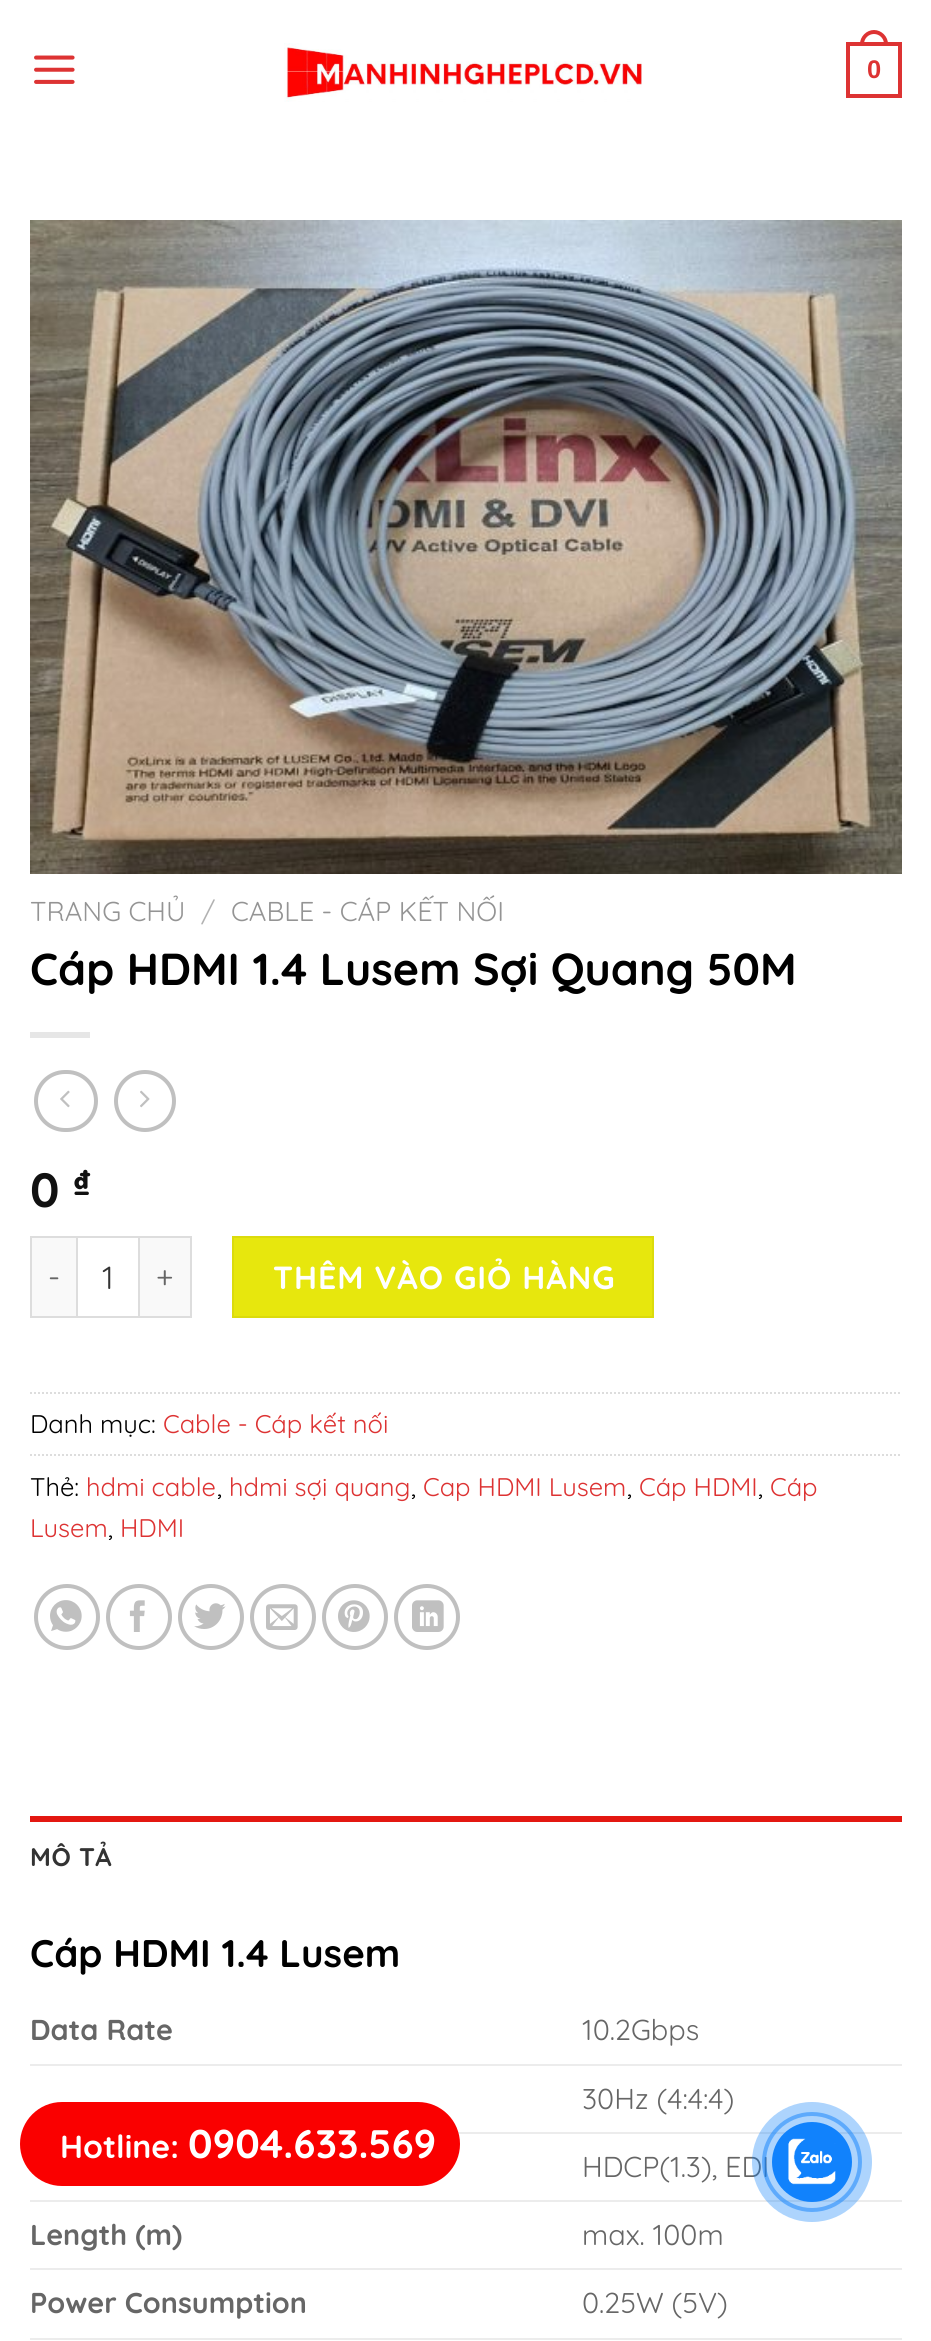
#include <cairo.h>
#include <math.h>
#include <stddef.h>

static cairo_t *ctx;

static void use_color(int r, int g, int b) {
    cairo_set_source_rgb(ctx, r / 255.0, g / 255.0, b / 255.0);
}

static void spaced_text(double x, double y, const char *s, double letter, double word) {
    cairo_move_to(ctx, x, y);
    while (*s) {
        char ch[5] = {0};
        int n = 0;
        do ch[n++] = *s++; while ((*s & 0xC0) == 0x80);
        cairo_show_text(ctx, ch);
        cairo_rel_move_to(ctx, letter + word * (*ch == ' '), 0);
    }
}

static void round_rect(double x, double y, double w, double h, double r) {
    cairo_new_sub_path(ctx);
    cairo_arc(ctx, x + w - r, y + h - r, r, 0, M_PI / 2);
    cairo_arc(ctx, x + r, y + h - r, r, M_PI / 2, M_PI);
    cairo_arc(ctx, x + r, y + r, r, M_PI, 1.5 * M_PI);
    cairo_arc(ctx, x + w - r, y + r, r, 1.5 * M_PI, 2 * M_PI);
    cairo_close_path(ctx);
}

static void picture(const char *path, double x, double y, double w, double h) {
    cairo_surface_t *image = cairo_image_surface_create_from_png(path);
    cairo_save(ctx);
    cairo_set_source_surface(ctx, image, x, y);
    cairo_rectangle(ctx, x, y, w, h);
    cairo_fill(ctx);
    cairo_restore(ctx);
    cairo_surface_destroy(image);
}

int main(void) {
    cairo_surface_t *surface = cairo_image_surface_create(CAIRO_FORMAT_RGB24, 931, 2341);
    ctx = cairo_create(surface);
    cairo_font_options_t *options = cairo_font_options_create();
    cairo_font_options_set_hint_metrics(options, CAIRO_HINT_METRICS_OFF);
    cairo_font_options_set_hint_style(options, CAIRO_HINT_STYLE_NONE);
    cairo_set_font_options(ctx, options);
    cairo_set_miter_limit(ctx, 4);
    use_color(255, 255, 255);
    cairo_paint(ctx);
    picture("img1.png", 34, 55, 41, 29);
    picture("img2.png", 284, 43, 358, 59);
    cairo_rectangle(ctx, 848, 44, 52, 52);
    use_color(221, 51, 51);
    cairo_set_line_width(ctx, 4);
    cairo_stroke(ctx);
    cairo_set_fill_rule(ctx, CAIRO_FILL_RULE_EVEN_ODD);
    cairo_new_path(ctx);
    cairo_move_to(ctx, 874, 30);
    cairo_curve_to(ctx, 881.5, 30, 888, 36.5, 888, 44);
    cairo_line_to(ctx, 888, 46);
    cairo_line_to(ctx, 860, 46);
    cairo_line_to(ctx, 860, 44);
    cairo_curve_to(ctx, 860, 36.5, 866.5, 30, 874, 30);
    cairo_close_path(ctx);
    cairo_move_to(ctx, 874, 34);
    cairo_curve_to(ctx, 879.5, 34, 884, 38.5, 884, 44);
    cairo_line_to(ctx, 884, 46);
    cairo_line_to(ctx, 864, 46);
    cairo_line_to(ctx, 864, 44);
    cairo_curve_to(ctx, 864, 38.5, 868.5, 34, 874, 34);
    cairo_close_path(ctx);
    cairo_fill(ctx);
    cairo_select_font_face(ctx, "Liberation Sans", CAIRO_FONT_SLANT_NORMAL, CAIRO_FONT_WEIGHT_BOLD);
    cairo_set_font_size(ctx, 25.5);
    cairo_move_to(ctx, 867, 78);
    cairo_show_text(ctx, "0");
    picture("img3.png", 30, 220, 872, 654);
    cairo_select_font_face(ctx, "Quicksand", CAIRO_FONT_SLANT_NORMAL, CAIRO_FONT_WEIGHT_NORMAL);
    cairo_set_font_size(ctx, 27.25);
    use_color(148, 148, 148);
    cairo_move_to(ctx, 30, 921);
    cairo_show_text(ctx, "TRANG CHỦ");
    use_color(178, 178, 178);
    cairo_move_to(ctx, 201, 921);
    cairo_show_text(ctx, "/");
    use_color(148, 148, 148);
    cairo_move_to(ctx, 231, 921);
    cairo_show_text(ctx, "CABLE - CÁP KẾT NỐI");
    cairo_select_font_face(ctx, "Quicksand", CAIRO_FONT_SLANT_NORMAL, CAIRO_FONT_WEIGHT_BOLD);
    cairo_set_font_size(ctx, 44.75);
    use_color(0, 0, 0);
    cairo_move_to(ctx, 30, 985);
    cairo_show_text(ctx, "Cáp HDMI 1.4 Lusem Sợi Quang 50M");
    use_color(230, 230, 230);
    cairo_rectangle(ctx, 30, 1032, 60, 6);
    cairo_fill(ctx);
    round_rect(36, 1072, 60, 58, 29);
    use_color(192, 192, 192);
    cairo_stroke(ctx);
    picture("img4.png", 60, 1090, 10, 18);
    cairo_arc(ctx, 145, 1101, 29, 0, 2 * M_PI);
    cairo_stroke(ctx);
    picture("img5.png", 140, 1090, 10, 18);
    cairo_set_font_size(ctx, 48);
    use_color(17, 17, 17);
    cairo_move_to(ctx, 30, 1207);
    cairo_show_text(ctx, "0");
    cairo_set_font_size(ctx, 36);
    cairo_move_to(ctx, 73, 1195);
    cairo_show_text(ctx, "₫");
    use_color(249, 249, 249);
    cairo_rectangle(ctx, 32, 1238, 44, 78);
    cairo_fill(ctx);
    use_color(221, 221, 221);
    cairo_rectangle(ctx, 30, 1236, 46, 2);
    cairo_fill(ctx);
    cairo_rectangle(ctx, 30, 1316, 46, 2);
    cairo_fill(ctx);
    cairo_rectangle(ctx, 30, 1236, 2, 82);
    cairo_fill(ctx);
    cairo_select_font_face(ctx, "Quicksand", CAIRO_FONT_SLANT_NORMAL, CAIRO_FONT_WEIGHT_NORMAL);
    cairo_set_font_size(ctx, 31);
    use_color(102, 102, 102);
    spaced_text(48, 1288, "-", 1, 0);
    cairo_rectangle(ctx, 77, 1237, 62, 80);
    use_color(221, 221, 221);
    cairo_set_line_width(ctx, 2);
    cairo_stroke(ctx);
    cairo_set_font_size(ctx, 32);
    use_color(51, 51, 51);
    cairo_move_to(ctx, 102, 1289);
    cairo_show_text(ctx, "1");
    use_color(249, 249, 249);
    cairo_rectangle(ctx, 140, 1238, 50, 78);
    cairo_fill(ctx);
    use_color(221, 221, 221);
    cairo_rectangle(ctx, 140, 1236, 52, 2);
    cairo_fill(ctx);
    cairo_rectangle(ctx, 190, 1236, 2, 82);
    cairo_fill(ctx);
    cairo_rectangle(ctx, 140, 1316, 52, 2);
    cairo_fill(ctx);
    cairo_set_font_size(ctx, 31);
    use_color(102, 102, 102);
    spaced_text(156, 1288, "+", 1, 0);
    use_color(231, 231, 13);
    cairo_rectangle(ctx, 233, 1237, 420, 80);
    cairo_fill_preserve(ctx);
    use_color(219, 219, 12);
    cairo_stroke(ctx);
    cairo_select_font_face(ctx, "Quicksand", CAIRO_FONT_SLANT_NORMAL, CAIRO_FONT_WEIGHT_BOLD);
    cairo_set_font_size(ctx, 32);
    use_color(255, 255, 255);
    spaced_text(273, 1289, "THÊM VÀO GIỎ HÀNG", 1, 0);
    cairo_new_path(ctx);
    cairo_move_to(ctx, 30, 1393);
    cairo_line_to(ctx, 902, 1393);
    use_color(221, 221, 221);
    cairo_set_dash(ctx, (double[]){2, 2}, 2, 0);
    cairo_stroke(ctx);
    cairo_select_font_face(ctx, "Quicksand", CAIRO_FONT_SLANT_NORMAL, CAIRO_FONT_WEIGHT_NORMAL);
    cairo_set_font_size(ctx, 25.5);
    use_color(0, 0, 0);
    cairo_move_to(ctx, 30, 1433);
    cairo_show_text(ctx, "Danh mục:");
    use_color(221, 51, 51);
    cairo_move_to(ctx, 163, 1433);
    cairo_show_text(ctx, "Cable - Cáp kết nối");
    cairo_new_path(ctx);
    cairo_move_to(ctx, 30, 1455);
    cairo_line_to(ctx, 902, 1455);
    use_color(221, 221, 221);
    cairo_stroke(ctx);
    use_color(0, 0, 0);
    cairo_move_to(ctx, 30, 1496);
    cairo_show_text(ctx, "Thẻ:");
    use_color(221, 51, 51);
    cairo_move_to(ctx, 86, 1496);
    cairo_show_text(ctx, "hdmi cable");
    use_color(0, 0, 0);
    cairo_move_to(ctx, 217, 1496);
    cairo_show_text(ctx, ",");
    use_color(221, 51, 51);
    cairo_move_to(ctx, 229, 1496);
    cairo_show_text(ctx, "hdmi sợi quang");
    use_color(0, 0, 0);
    cairo_move_to(ctx, 411, 1496);
    cairo_show_text(ctx, ",");
    use_color(221, 51, 51);
    cairo_move_to(ctx, 423, 1496);
    cairo_show_text(ctx, "Cap HDMI Lusem");
    use_color(0, 0, 0);
    cairo_move_to(ctx, 627, 1496);
    cairo_show_text(ctx, ",");
    use_color(221, 51, 51);
    cairo_move_to(ctx, 639, 1496);
    cairo_show_text(ctx, "Cáp HDMI");
    use_color(0, 0, 0);
    cairo_move_to(ctx, 758, 1496);
    cairo_show_text(ctx, ",");
    use_color(221, 51, 51);
    cairo_move_to(ctx, 770, 1496);
    cairo_show_text(ctx, "Cáp");
    cairo_move_to(ctx, 30, 1537);
    cairo_show_text(ctx, "Lusem");
    cairo_move_to(ctx, 120, 1537);
    cairo_show_text(ctx, "HDMI");
    use_color(0, 0, 0);
    cairo_move_to(ctx, 108, 1537);
    cairo_show_text(ctx, ",");
    cairo_new_path(ctx);
    cairo_arc(ctx, 67, 1617, 31, 0, 2 * M_PI);
    use_color(192, 192, 192);
    cairo_set_line_width(ctx, 4);
    cairo_set_dash(ctx, NULL, 0, 0);
    cairo_stroke(ctx);
    picture("img6.png", 50, 1600, 32, 32);
    cairo_arc(ctx, 139, 1617, 31, 0, 2 * M_PI);
    cairo_stroke(ctx);
    picture("img7.png", 129, 1600, 16, 32);
    cairo_arc(ctx, 211, 1617, 31, 0, 2 * M_PI);
    cairo_stroke(ctx);
    picture("img8.png", 194, 1603, 32, 26);
    cairo_arc(ctx, 283, 1617, 31, 0, 2 * M_PI);
    cairo_stroke(ctx);
    picture("img9.png", 266, 1604, 32, 26);
    cairo_arc(ctx, 355, 1617, 31, 0, 2 * M_PI);
    cairo_stroke(ctx);
    picture("img10.png", 338, 1600, 32, 32);
    cairo_arc(ctx, 427, 1617, 31, 0, 2 * M_PI);
    cairo_stroke(ctx);
    picture("img11.png", 412, 1600, 32, 32);
    use_color(227, 24, 17);
    cairo_rectangle(ctx, 30, 1816, 872, 6);
    cairo_fill(ctx);
    cairo_select_font_face(ctx, "Quicksand", CAIRO_FONT_SLANT_NORMAL, CAIRO_FONT_WEIGHT_BOLD);
    use_color(51, 51, 51);
    spaced_text(30, 1866, "MÔ TẢ", 0.5, 0);
    cairo_set_font_size(ctx, 38.5);
    use_color(0, 0, 0);
    cairo_move_to(ctx, 30, 1967);
    cairo_show_text(ctx, "Cáp HDMI 1.4 Lusem");
    use_color(236, 236, 236);
    cairo_rectangle(ctx, 30, 2064, 872, 2);
    cairo_fill(ctx);
    cairo_set_font_size(ctx, 28.75);
    use_color(102, 102, 102);
    cairo_move_to(ctx, 30, 2040);
    cairo_show_text(ctx, "Data Rate");
    cairo_select_font_face(ctx, "Quicksand", CAIRO_FONT_SLANT_NORMAL, CAIRO_FONT_WEIGHT_NORMAL);
    cairo_move_to(ctx, 582, 2040);
    cairo_show_text(ctx, "10.2Gbps");
    cairo_move_to(ctx, 582, 2109);
    cairo_show_text(ctx, "30Hz (4:4:4)");
    use_color(236, 236, 236);
    cairo_rectangle(ctx, 458, 2132, 444, 2);
    cairo_fill(ctx);
    use_color(102, 102, 102);
    cairo_move_to(ctx, 582, 2177);
    cairo_show_text(ctx, "HDCP(1.3), EDI");
    use_color(236, 236, 236);
    cairo_rectangle(ctx, 30, 2200, 872, 2);
    cairo_fill(ctx);
    cairo_rectangle(ctx, 30, 2268, 872, 2);
    cairo_fill(ctx);
    cairo_select_font_face(ctx, "Quicksand", CAIRO_FONT_SLANT_NORMAL, CAIRO_FONT_WEIGHT_BOLD);
    use_color(102, 102, 102);
    cairo_move_to(ctx, 30, 2245);
    cairo_show_text(ctx, "Length (m)");
    cairo_select_font_face(ctx, "Quicksand", CAIRO_FONT_SLANT_NORMAL, CAIRO_FONT_WEIGHT_NORMAL);
    cairo_move_to(ctx, 582, 2245);
    cairo_show_text(ctx, "max. 100m");
    use_color(236, 236, 236);
    cairo_rectangle(ctx, 30, 2338, 872, 2);
    cairo_fill(ctx);
    cairo_select_font_face(ctx, "Quicksand", CAIRO_FONT_SLANT_NORMAL, CAIRO_FONT_WEIGHT_BOLD);
    use_color(102, 102, 102);
    cairo_move_to(ctx, 30, 2313);
    cairo_show_text(ctx, "Power Consumption");
    cairo_select_font_face(ctx, "Quicksand", CAIRO_FONT_SLANT_NORMAL, CAIRO_FONT_WEIGHT_NORMAL);
    cairo_move_to(ctx, 582, 2313);
    cairo_show_text(ctx, "0.25W (5V)");
    use_color(250, 0, 0);
    round_rect(20, 2102, 440, 84, 42);
    cairo_fill(ctx);
    cairo_select_font_face(ctx, "Quicksand", CAIRO_FONT_SLANT_NORMAL, CAIRO_FONT_WEIGHT_BOLD);
    cairo_set_font_size(ctx, 32);
    use_color(255, 255, 255);
    cairo_move_to(ctx, 60, 2158);
    cairo_show_text(ctx, "Hotline:");
    cairo_set_font_size(ctx, 40);
    cairo_move_to(ctx, 188, 2158);
    cairo_show_text(ctx, "0904.633.569");
    cairo_new_path(ctx);
    cairo_arc(ctx, 812, 2162, 48, 0, 2 * M_PI);
    cairo_set_source_rgba(ctx, 0.067, 0.51, 0.988, 0.5);
    cairo_stroke(ctx);
    cairo_set_source_rgba(ctx, 0.067, 0.51, 0.988, 0.34);
    cairo_arc(ctx, 812, 2162, 60, 0, 2 * M_PI);
    cairo_fill(ctx);
    use_color(17, 130, 252);
    cairo_arc(ctx, 812, 2162, 40, 0, 2 * M_PI);
    cairo_fill(ctx);
    picture("img12.png", 788, 2138, 48, 47);
    cairo_surface_write_to_png(surface, "result.png");
    cairo_font_options_destroy(options);
    cairo_destroy(ctx);
    cairo_surface_destroy(surface);
    return 0;
}
